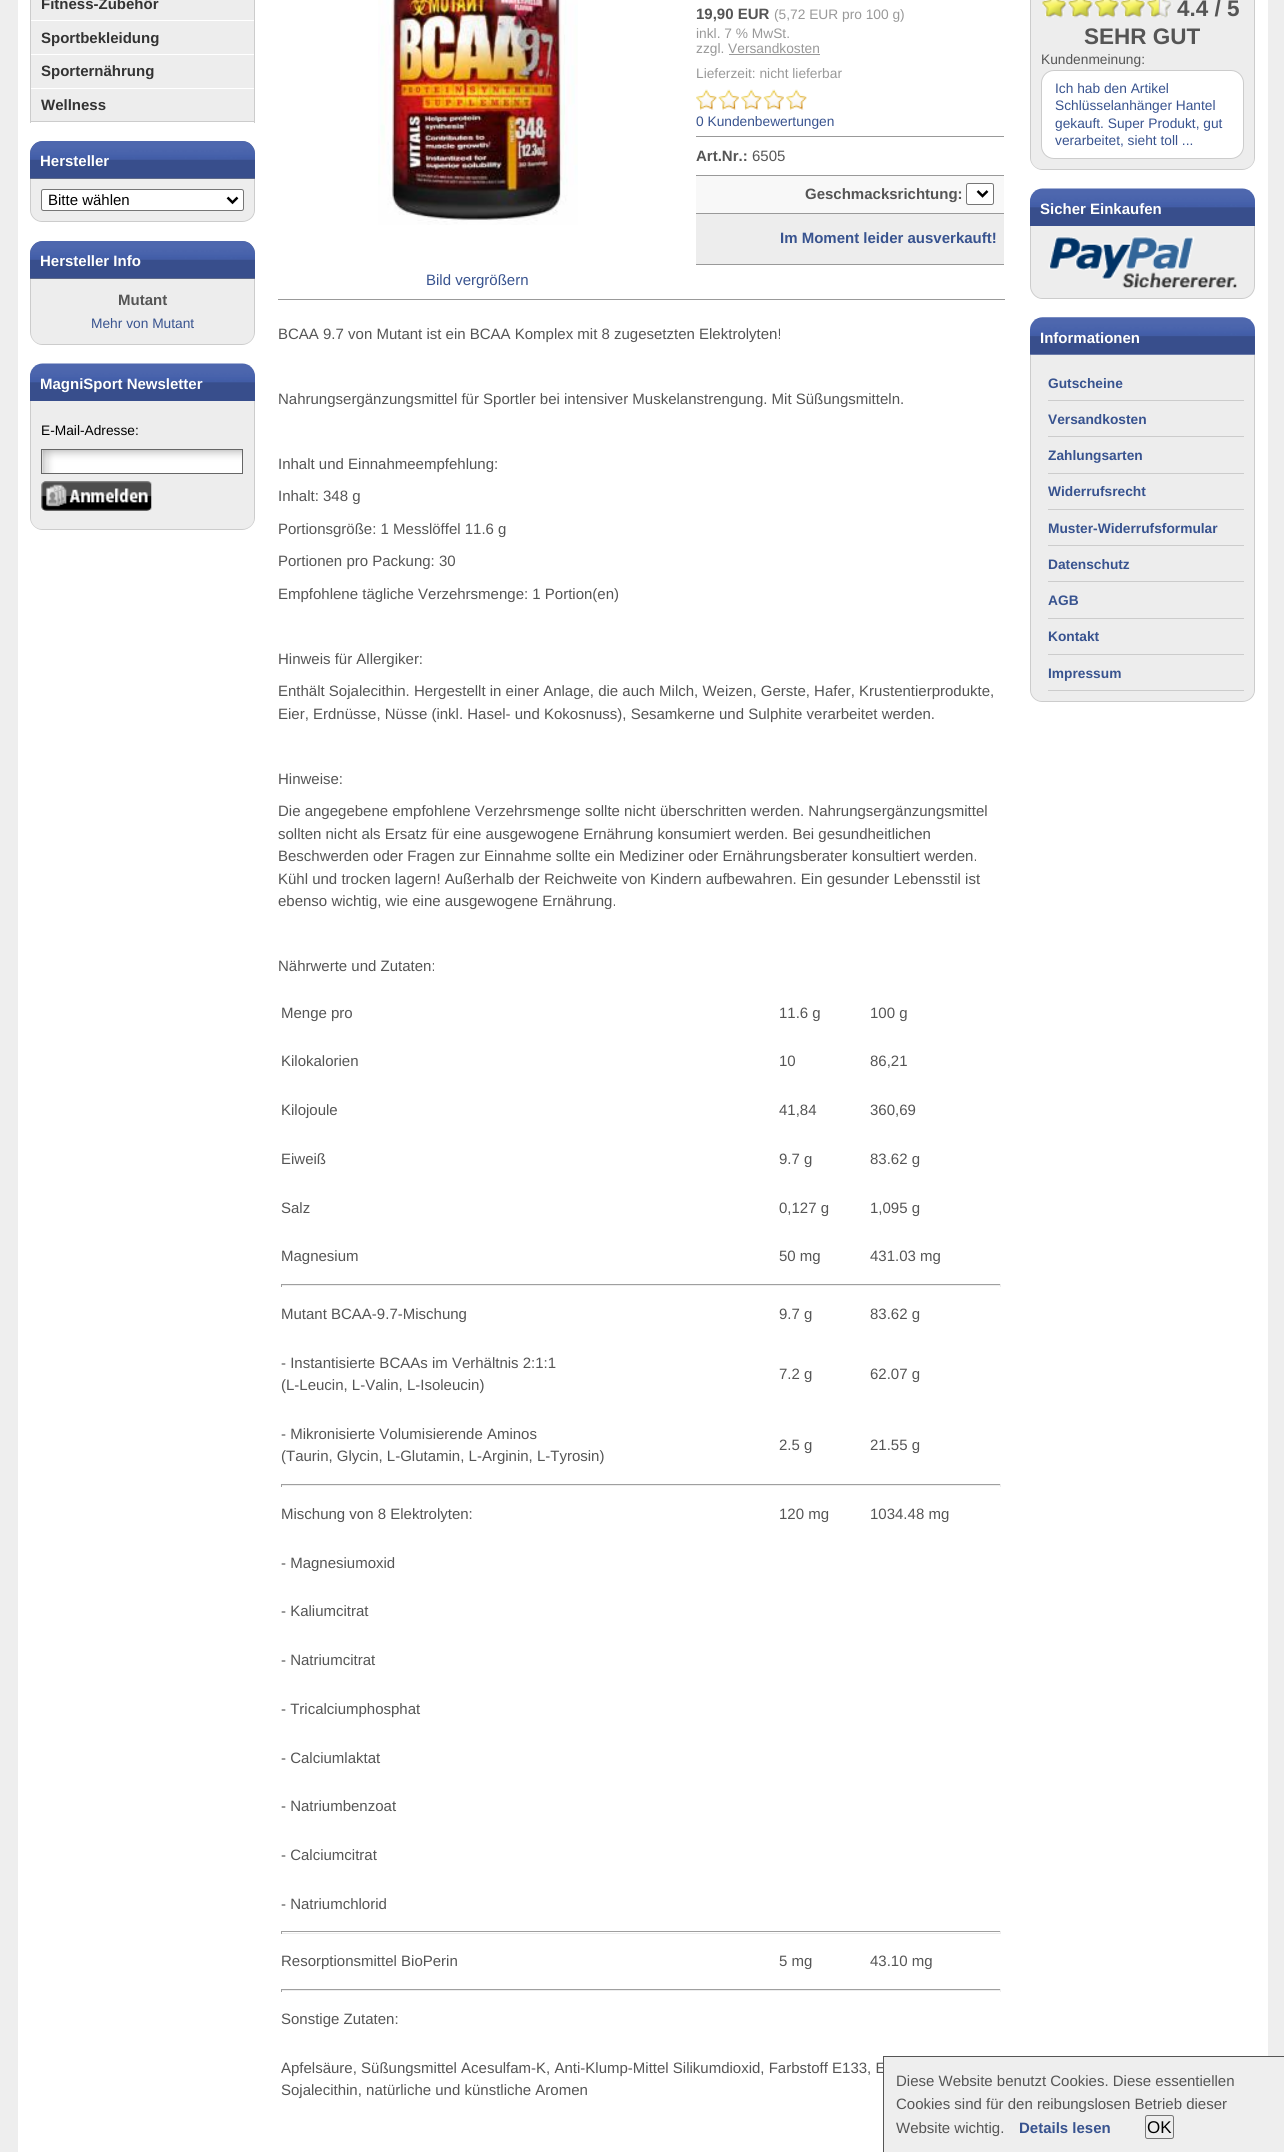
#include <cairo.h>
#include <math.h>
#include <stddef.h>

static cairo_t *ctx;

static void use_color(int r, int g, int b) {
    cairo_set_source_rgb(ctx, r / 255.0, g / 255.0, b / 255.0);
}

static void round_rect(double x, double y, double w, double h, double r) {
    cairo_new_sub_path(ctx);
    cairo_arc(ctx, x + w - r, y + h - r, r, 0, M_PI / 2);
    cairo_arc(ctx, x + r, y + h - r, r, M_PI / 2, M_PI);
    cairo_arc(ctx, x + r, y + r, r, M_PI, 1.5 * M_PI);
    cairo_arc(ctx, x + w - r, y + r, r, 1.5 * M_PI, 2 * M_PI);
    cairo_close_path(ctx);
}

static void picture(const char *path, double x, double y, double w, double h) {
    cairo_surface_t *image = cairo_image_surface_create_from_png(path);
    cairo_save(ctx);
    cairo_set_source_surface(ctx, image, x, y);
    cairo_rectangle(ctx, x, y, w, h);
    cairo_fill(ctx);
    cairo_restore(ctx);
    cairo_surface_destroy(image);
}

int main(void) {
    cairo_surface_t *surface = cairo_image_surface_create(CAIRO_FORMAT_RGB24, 1284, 2152);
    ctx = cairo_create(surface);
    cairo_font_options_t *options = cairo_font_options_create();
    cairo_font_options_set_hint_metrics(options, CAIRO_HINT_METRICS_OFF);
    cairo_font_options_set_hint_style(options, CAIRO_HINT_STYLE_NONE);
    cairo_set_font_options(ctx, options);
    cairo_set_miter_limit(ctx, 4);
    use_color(238, 238, 238);
    cairo_paint(ctx);
    use_color(255, 255, 255);
    cairo_rectangle(ctx, 18, 0, 1250, 2152);
    cairo_fill(ctx);
    use_color(237, 237, 237);
    cairo_rectangle(ctx, 31, 0, 223, 121);
    cairo_fill(ctx);
    use_color(204, 204, 204);
    cairo_rectangle(ctx, 254, 0, 1, 123);
    cairo_fill(ctx);
    cairo_rectangle(ctx, 30, 121, 225, 1);
    cairo_fill(ctx);
    cairo_rectangle(ctx, 30, 0, 1, 123);
    cairo_fill(ctx);
    cairo_select_font_face(ctx, "Liberation Sans", CAIRO_FONT_SLANT_NORMAL, CAIRO_FONT_WEIGHT_BOLD);
    cairo_set_font_size(ctx, 15);
    use_color(51, 51, 51);
    cairo_move_to(ctx, 41, 9);
    cairo_show_text(ctx, "Fitness-Zubehör");
    use_color(255, 255, 255);
    cairo_rectangle(ctx, 31, 20, 223, 1);
    cairo_fill(ctx);
    use_color(51, 51, 51);
    cairo_move_to(ctx, 41, 43);
    cairo_show_text(ctx, "Sportbekleidung");
    use_color(255, 255, 255);
    cairo_rectangle(ctx, 31, 54, 223, 1);
    cairo_fill(ctx);
    use_color(51, 51, 51);
    cairo_move_to(ctx, 41, 76);
    cairo_show_text(ctx, "Sporternährung");
    use_color(255, 255, 255);
    cairo_rectangle(ctx, 31, 88, 223, 1);
    cairo_fill(ctx);
    use_color(51, 51, 51);
    cairo_move_to(ctx, 41, 110);
    cairo_show_text(ctx, "Wellness");
    use_color(134, 134, 134);
    cairo_new_path(ctx);
    cairo_move_to(ctx, 43, 141);
    cairo_line_to(ctx, 242, 141);
    cairo_curve_to(ctx, 249, 141, 255, 147, 255, 154);
    cairo_line_to(ctx, 255, 179);
    cairo_line_to(ctx, 30, 179);
    cairo_line_to(ctx, 30, 154);
    cairo_curve_to(ctx, 30, 147, 36, 141, 43, 141);
    cairo_close_path(ctx);
    cairo_fill(ctx);
    picture("img1.png", 30, 141, 226, 38);
    use_color(255, 255, 255);
    cairo_move_to(ctx, 40, 166);
    cairo_show_text(ctx, "Hersteller");
    use_color(237, 237, 237);
    cairo_new_path(ctx);
    cairo_move_to(ctx, 31, 179);
    cairo_line_to(ctx, 254, 179);
    cairo_line_to(ctx, 254, 210);
    cairo_curve_to(ctx, 254, 216, 249, 221, 243, 221);
    cairo_line_to(ctx, 42, 221);
    cairo_curve_to(ctx, 36, 221, 31, 216, 31, 210);
    cairo_close_path(ctx);
    cairo_fill(ctx);
    use_color(204, 204, 204);
    cairo_set_fill_rule(ctx, CAIRO_FILL_RULE_EVEN_ODD);
    cairo_new_path(ctx);
    cairo_move_to(ctx, 30, 179);
    cairo_line_to(ctx, 255, 179);
    cairo_line_to(ctx, 255, 210);
    cairo_curve_to(ctx, 255, 217, 249, 222, 242, 222);
    cairo_line_to(ctx, 42, 222);
    cairo_curve_to(ctx, 36, 222, 30, 217, 30, 210);
    cairo_close_path(ctx);
    cairo_move_to(ctx, 31, 179);
    cairo_line_to(ctx, 254, 179);
    cairo_line_to(ctx, 254, 210);
    cairo_curve_to(ctx, 254, 216, 249, 221, 242, 221);
    cairo_line_to(ctx, 42, 221);
    cairo_curve_to(ctx, 36, 221, 31, 216, 31, 210);
    cairo_close_path(ctx);
    cairo_fill(ctx);
    use_color(255, 255, 255);
    round_rect(41.5, 189.5, 202, 21, 2);
    cairo_fill_preserve(ctx);
    use_color(118, 118, 118);
    cairo_set_line_width(ctx, 1);
    cairo_stroke(ctx);
    cairo_new_path(ctx);
    cairo_move_to(ctx, 227.5, 197.5);
    cairo_line_to(ctx, 232.5, 202.5);
    cairo_line_to(ctx, 237.5, 197.5);
    use_color(0, 0, 0);
    cairo_set_line_width(ctx, 2.5);
    cairo_stroke(ctx);
    cairo_select_font_face(ctx, "Liberation Sans", CAIRO_FONT_SLANT_NORMAL, CAIRO_FONT_WEIGHT_NORMAL);
    cairo_move_to(ctx, 48, 205);
    cairo_show_text(ctx, "Bitte wählen");
    use_color(134, 134, 134);
    cairo_new_path(ctx);
    cairo_move_to(ctx, 43, 241);
    cairo_line_to(ctx, 242, 241);
    cairo_curve_to(ctx, 249, 241, 255, 247, 255, 254);
    cairo_line_to(ctx, 255, 279);
    cairo_line_to(ctx, 30, 279);
    cairo_line_to(ctx, 30, 254);
    cairo_curve_to(ctx, 30, 247, 36, 241, 43, 241);
    cairo_close_path(ctx);
    cairo_fill(ctx);
    picture("img1.png", 30, 241, 226, 38);
    cairo_select_font_face(ctx, "Liberation Sans", CAIRO_FONT_SLANT_NORMAL, CAIRO_FONT_WEIGHT_BOLD);
    use_color(255, 255, 255);
    cairo_move_to(ctx, 40, 266);
    cairo_show_text(ctx, "Hersteller Info");
    use_color(237, 237, 237);
    cairo_new_path(ctx);
    cairo_move_to(ctx, 31, 279);
    cairo_line_to(ctx, 254, 279);
    cairo_line_to(ctx, 254, 333);
    cairo_curve_to(ctx, 254, 339, 249, 344, 243, 344);
    cairo_line_to(ctx, 42, 344);
    cairo_curve_to(ctx, 36, 344, 31, 339, 31, 333);
    cairo_close_path(ctx);
    cairo_fill(ctx);
    use_color(204, 204, 204);
    cairo_new_path(ctx);
    cairo_move_to(ctx, 30, 279);
    cairo_line_to(ctx, 255, 279);
    cairo_line_to(ctx, 255, 332);
    cairo_curve_to(ctx, 255, 339, 249, 345, 242, 345);
    cairo_line_to(ctx, 42, 345);
    cairo_curve_to(ctx, 36, 345, 30, 339, 30, 332);
    cairo_close_path(ctx);
    cairo_move_to(ctx, 31, 279);
    cairo_line_to(ctx, 254, 279);
    cairo_line_to(ctx, 254, 332);
    cairo_curve_to(ctx, 254, 339, 249, 344, 242, 344);
    cairo_line_to(ctx, 42, 344);
    cairo_curve_to(ctx, 36, 344, 31, 339, 31, 332);
    cairo_close_path(ctx);
    cairo_fill(ctx);
    use_color(85, 85, 85);
    cairo_move_to(ctx, 118, 305);
    cairo_show_text(ctx, "Mutant");
    cairo_select_font_face(ctx, "Liberation Sans", CAIRO_FONT_SLANT_NORMAL, CAIRO_FONT_WEIGHT_NORMAL);
    cairo_set_font_size(ctx, 13.75);
    use_color(56, 83, 143);
    cairo_move_to(ctx, 91, 328);
    cairo_show_text(ctx, "Mehr von Mutant");
    picture("img2.png", 30, 363, 225, 38);
    cairo_select_font_face(ctx, "Liberation Sans", CAIRO_FONT_SLANT_NORMAL, CAIRO_FONT_WEIGHT_BOLD);
    cairo_set_font_size(ctx, 15);
    use_color(255, 255, 255);
    cairo_move_to(ctx, 40, 389);
    cairo_show_text(ctx, "MagniSport Newsletter");
    use_color(237, 237, 237);
    cairo_new_path(ctx);
    cairo_move_to(ctx, 31, 401);
    cairo_line_to(ctx, 254, 401);
    cairo_line_to(ctx, 254, 518);
    cairo_curve_to(ctx, 254, 524, 249, 529, 243, 529);
    cairo_line_to(ctx, 42, 529);
    cairo_curve_to(ctx, 36, 529, 31, 524, 31, 518);
    cairo_close_path(ctx);
    cairo_fill(ctx);
    use_color(204, 204, 204);
    cairo_new_path(ctx);
    cairo_move_to(ctx, 30, 401);
    cairo_line_to(ctx, 255, 401);
    cairo_line_to(ctx, 255, 518);
    cairo_curve_to(ctx, 255, 524, 249, 530, 242, 530);
    cairo_line_to(ctx, 42, 530);
    cairo_curve_to(ctx, 36, 530, 30, 524, 30, 518);
    cairo_close_path(ctx);
    cairo_move_to(ctx, 31, 401);
    cairo_line_to(ctx, 254, 401);
    cairo_line_to(ctx, 254, 518);
    cairo_curve_to(ctx, 254, 524, 249, 529, 242, 529);
    cairo_line_to(ctx, 42, 529);
    cairo_curve_to(ctx, 36, 529, 31, 524, 31, 518);
    cairo_close_path(ctx);
    cairo_fill(ctx);
    cairo_select_font_face(ctx, "Liberation Sans", CAIRO_FONT_SLANT_NORMAL, CAIRO_FONT_WEIGHT_NORMAL);
    cairo_set_font_size(ctx, 13.75);
    use_color(0, 0, 0);
    cairo_move_to(ctx, 41, 435);
    cairo_show_text(ctx, "E-Mail-Adresse:");
    picture("img3.png", 42, 450, 200, 23);
    cairo_rectangle(ctx, 41.5, 449.5, 201, 24);
    use_color(102, 102, 102);
    cairo_set_line_width(ctx, 1);
    cairo_stroke(ctx);
    picture("img4.png", 41, 481, 111, 30);
    cairo_select_font_face(ctx, "Liberation Sans", CAIRO_FONT_SLANT_NORMAL, CAIRO_FONT_WEIGHT_BOLD);
    cairo_set_font_size(ctx, 15);
    use_color(85, 85, 85);
    cairo_move_to(ctx, 696, 19);
    cairo_show_text(ctx, "19,90 EUR");
    cairo_select_font_face(ctx, "Liberation Sans", CAIRO_FONT_SLANT_NORMAL, CAIRO_FONT_WEIGHT_NORMAL);
    cairo_set_font_size(ctx, 13.75);
    use_color(153, 153, 153);
    cairo_move_to(ctx, 774, 19);
    cairo_show_text(ctx, "(5,72 EUR pro 100 g)");
    cairo_move_to(ctx, 696, 38);
    cairo_show_text(ctx, "inkl. 7 % MwSt.");
    cairo_move_to(ctx, 696, 53);
    cairo_show_text(ctx, "zzgl. Versandkosten");
    cairo_rectangle(ctx, 729, 54, 91, 1);
    cairo_fill(ctx);
    cairo_move_to(ctx, 696, 78);
    cairo_show_text(ctx, "Lieferzeit: nicht lieferbar");
    picture("img5.png", 696, 89, 111, 21);
    use_color(56, 83, 143);
    cairo_move_to(ctx, 696, 126);
    cairo_show_text(ctx, "0 Kundenbewertungen");
    use_color(153, 153, 153);
    cairo_rectangle(ctx, 696, 136, 308, 1);
    cairo_fill(ctx);
    cairo_select_font_face(ctx, "Liberation Sans", CAIRO_FONT_SLANT_NORMAL, CAIRO_FONT_WEIGHT_BOLD);
    cairo_set_font_size(ctx, 15);
    use_color(85, 85, 85);
    cairo_move_to(ctx, 696, 161);
    cairo_show_text(ctx, "Art.Nr.:");
    cairo_select_font_face(ctx, "Liberation Sans", CAIRO_FONT_SLANT_NORMAL, CAIRO_FONT_WEIGHT_NORMAL);
    cairo_move_to(ctx, 752, 161);
    cairo_show_text(ctx, "6505");
    use_color(248, 248, 248);
    cairo_rectangle(ctx, 696, 176, 308, 37);
    cairo_fill(ctx);
    use_color(153, 153, 153);
    cairo_rectangle(ctx, 696, 175, 308, 1);
    cairo_fill(ctx);
    cairo_select_font_face(ctx, "Liberation Sans", CAIRO_FONT_SLANT_NORMAL, CAIRO_FONT_WEIGHT_BOLD);
    use_color(85, 85, 85);
    cairo_move_to(ctx, 805, 199);
    cairo_show_text(ctx, "Geschmacksrichtung:");
    use_color(255, 255, 255);
    round_rect(966.5, 183.5, 27, 21, 2);
    cairo_fill_preserve(ctx);
    use_color(118, 118, 118);
    cairo_stroke(ctx);
    cairo_new_path(ctx);
    cairo_move_to(ctx, 977.5, 191);
    cairo_line_to(ctx, 982.5, 196);
    cairo_line_to(ctx, 987.5, 191);
    use_color(0, 0, 0);
    cairo_set_line_width(ctx, 2.5);
    cairo_stroke(ctx);
    use_color(237, 237, 237);
    cairo_rectangle(ctx, 696, 214, 308, 50);
    cairo_fill(ctx);
    use_color(153, 153, 153);
    cairo_rectangle(ctx, 696, 213, 308, 1);
    cairo_fill(ctx);
    cairo_rectangle(ctx, 696, 264, 308, 1);
    cairo_fill(ctx);
    use_color(56, 83, 143);
    cairo_move_to(ctx, 780, 243);
    cairo_show_text(ctx, "Im Moment leider ausverkauft!");
    picture("img6.png", 378, 0, 200, 225);
    cairo_select_font_face(ctx, "Liberation Sans", CAIRO_FONT_SLANT_NORMAL, CAIRO_FONT_WEIGHT_NORMAL);
    cairo_move_to(ctx, 426, 285);
    cairo_show_text(ctx, "Bild vergrößern");
    use_color(153, 153, 153);
    cairo_rectangle(ctx, 278, 299, 727, 1);
    cairo_fill(ctx);
    use_color(85, 85, 85);
    cairo_move_to(ctx, 278, 339);
    cairo_show_text(ctx, "BCAA 9.7 von Mutant ist ein BCAA Komplex mit 8 zugesetzten Elektrolyten!");
    cairo_move_to(ctx, 278, 404);
    cairo_show_text(ctx, "Nahrungsergänzungsmittel für Sportler bei intensiver Muskelanstrengung. Mit Süßungsmitteln.");
    cairo_move_to(ctx, 278, 469);
    cairo_show_text(ctx, "Inhalt und Einnahmeempfehlung:");
    cairo_move_to(ctx, 278, 501);
    cairo_show_text(ctx, "Inhalt: 348 g");
    cairo_move_to(ctx, 278, 534);
    cairo_show_text(ctx, "Portionsgröße: 1 Messlöffel 11.6 g");
    cairo_move_to(ctx, 278, 566);
    cairo_show_text(ctx, "Portionen pro Packung: 30");
    cairo_move_to(ctx, 278, 599);
    cairo_show_text(ctx, "Empfohlene tägliche Verzehrsmenge: 1 Portion(en)");
    cairo_move_to(ctx, 278, 664);
    cairo_show_text(ctx, "Hinweis für Allergiker:");
    cairo_move_to(ctx, 278, 696);
    cairo_show_text(ctx, "Enthält Sojalecithin. Hergestellt in einer Anlage, die auch Milch, Weizen, Gerste, Hafer, Krustentierprodukte,");
    cairo_move_to(ctx, 278, 719);
    cairo_show_text(ctx, "Eier, Erdnüsse, Nüsse (inkl. Hasel- und Kokosnuss), Sesamkerne und Sulphite verarbeitet werden.");
    cairo_move_to(ctx, 278, 784);
    cairo_show_text(ctx, "Hinweise:");
    cairo_move_to(ctx, 278, 816);
    cairo_show_text(ctx, "Die angegebene empfohlene Verzehrsmenge sollte nicht überschritten werden. Nahrungsergänzungsmittel");
    cairo_move_to(ctx, 278, 839);
    cairo_show_text(ctx, "sollten nicht als Ersatz für eine ausgewogene Ernährung konsumiert werden. Bei gesundheitlichen");
    cairo_move_to(ctx, 278, 861);
    cairo_show_text(ctx, "Beschwerden oder Fragen zur Einnahme sollte ein Mediziner oder Ernährungsberater konsultiert werden.");
    cairo_move_to(ctx, 278, 884);
    cairo_show_text(ctx, "Kühl und trocken lagern! Außerhalb der Reichweite von Kindern aufbewahren. Ein gesunder Lebensstil ist");
    cairo_move_to(ctx, 278, 906);
    cairo_show_text(ctx, "ebenso wichtig, wie eine ausgewogene Ernährung.");
    cairo_move_to(ctx, 278, 971);
    cairo_show_text(ctx, "Nährwerte und Zutaten:");
    cairo_move_to(ctx, 281, 1018);
    cairo_show_text(ctx, "Menge pro");
    cairo_move_to(ctx, 779, 1018);
    cairo_show_text(ctx, "11.6 g");
    cairo_move_to(ctx, 870, 1018);
    cairo_show_text(ctx, "100 g");
    cairo_move_to(ctx, 281, 1066);
    cairo_show_text(ctx, "Kilokalorien");
    cairo_move_to(ctx, 779, 1066);
    cairo_show_text(ctx, "10");
    cairo_move_to(ctx, 870, 1066);
    cairo_show_text(ctx, "86,21");
    cairo_move_to(ctx, 281, 1115);
    cairo_show_text(ctx, "Kilojoule");
    cairo_move_to(ctx, 779, 1115);
    cairo_show_text(ctx, "41,84");
    cairo_move_to(ctx, 870, 1115);
    cairo_show_text(ctx, "360,69");
    cairo_move_to(ctx, 281, 1164);
    cairo_show_text(ctx, "Eiweiß");
    cairo_move_to(ctx, 779, 1164);
    cairo_show_text(ctx, "9.7 g");
    cairo_move_to(ctx, 870, 1164);
    cairo_show_text(ctx, "83.62 g");
    cairo_move_to(ctx, 281, 1213);
    cairo_show_text(ctx, "Salz");
    cairo_move_to(ctx, 779, 1213);
    cairo_show_text(ctx, "0,127 g");
    cairo_move_to(ctx, 870, 1213);
    cairo_show_text(ctx, "1,095 g");
    cairo_move_to(ctx, 281, 1261);
    cairo_show_text(ctx, "Magnesium");
    cairo_move_to(ctx, 779, 1261);
    cairo_show_text(ctx, "50 mg");
    cairo_move_to(ctx, 870, 1261);
    cairo_show_text(ctx, "431.03 mg");
    use_color(159, 159, 159);
    cairo_rectangle(ctx, 281, 1284, 720, 1);
    cairo_fill(ctx);
    use_color(238, 238, 238);
    cairo_rectangle(ctx, 1000, 1284, 1, 3);
    cairo_fill(ctx);
    cairo_rectangle(ctx, 281, 1285, 720, 1);
    cairo_fill(ctx);
    use_color(159, 159, 159);
    cairo_rectangle(ctx, 281, 1284, 1, 3);
    cairo_fill(ctx);
    use_color(85, 85, 85);
    cairo_move_to(ctx, 281, 1319);
    cairo_show_text(ctx, "Mutant BCAA-9.7-Mischung");
    cairo_move_to(ctx, 779, 1319);
    cairo_show_text(ctx, "9.7 g");
    cairo_move_to(ctx, 870, 1319);
    cairo_show_text(ctx, "83.62 g");
    cairo_move_to(ctx, 281, 1368);
    cairo_show_text(ctx, "- Instantisierte BCAAs im Verhältnis 2:1:1");
    cairo_move_to(ctx, 281, 1390);
    cairo_show_text(ctx, "(L-Leucin, L-Valin, L-Isoleucin)");
    cairo_move_to(ctx, 779, 1379);
    cairo_show_text(ctx, "7.2 g");
    cairo_move_to(ctx, 870, 1379);
    cairo_show_text(ctx, "62.07 g");
    cairo_move_to(ctx, 281, 1439);
    cairo_show_text(ctx, "- Mikronisierte Volumisierende Aminos");
    cairo_move_to(ctx, 281, 1461);
    cairo_show_text(ctx, "(Taurin, Glycin, L-Glutamin, L-Arginin, L-Tyrosin)");
    cairo_move_to(ctx, 779, 1450);
    cairo_show_text(ctx, "2.5 g");
    cairo_move_to(ctx, 870, 1450);
    cairo_show_text(ctx, "21.55 g");
    use_color(159, 159, 159);
    cairo_rectangle(ctx, 281, 1484, 720, 1);
    cairo_fill(ctx);
    use_color(238, 238, 238);
    cairo_rectangle(ctx, 1000, 1484, 1, 3);
    cairo_fill(ctx);
    cairo_rectangle(ctx, 281, 1485, 720, 1);
    cairo_fill(ctx);
    use_color(159, 159, 159);
    cairo_rectangle(ctx, 281, 1484, 1, 3);
    cairo_fill(ctx);
    use_color(85, 85, 85);
    cairo_move_to(ctx, 281, 1519);
    cairo_show_text(ctx, "Mischung von 8 Elektrolyten:");
    cairo_move_to(ctx, 779, 1519);
    cairo_show_text(ctx, "120 mg");
    cairo_move_to(ctx, 870, 1519);
    cairo_show_text(ctx, "1034.48 mg");
    cairo_move_to(ctx, 281, 1568);
    cairo_show_text(ctx, "- Magnesiumoxid");
    cairo_move_to(ctx, 281, 1616);
    cairo_show_text(ctx, "- Kaliumcitrat");
    cairo_move_to(ctx, 281, 1665);
    cairo_show_text(ctx, "- Natriumcitrat");
    cairo_move_to(ctx, 281, 1714);
    cairo_show_text(ctx, "- Tricalciumphosphat");
    cairo_move_to(ctx, 281, 1763);
    cairo_show_text(ctx, "- Calciumlaktat");
    cairo_move_to(ctx, 281, 1811);
    cairo_show_text(ctx, "- Natriumbenzoat");
    cairo_move_to(ctx, 281, 1860);
    cairo_show_text(ctx, "- Calciumcitrat");
    cairo_move_to(ctx, 281, 1909);
    cairo_show_text(ctx, "- Natriumchlorid");
    use_color(159, 159, 159);
    cairo_rectangle(ctx, 281, 1931, 720, 1);
    cairo_fill(ctx);
    use_color(238, 238, 238);
    cairo_rectangle(ctx, 1000, 1931, 1, 3);
    cairo_fill(ctx);
    cairo_rectangle(ctx, 281, 1933, 720, 1);
    cairo_fill(ctx);
    use_color(159, 159, 159);
    cairo_rectangle(ctx, 281, 1931, 1, 3);
    cairo_fill(ctx);
    use_color(85, 85, 85);
    cairo_move_to(ctx, 281, 1966);
    cairo_show_text(ctx, "Resorptionsmittel BioPerin");
    cairo_move_to(ctx, 779, 1966);
    cairo_show_text(ctx, "5 mg");
    cairo_move_to(ctx, 870, 1966);
    cairo_show_text(ctx, "43.10 mg");
    use_color(159, 159, 159);
    cairo_rectangle(ctx, 281, 1989, 720, 1);
    cairo_fill(ctx);
    use_color(238, 238, 238);
    cairo_rectangle(ctx, 1000, 1989, 1, 3);
    cairo_fill(ctx);
    cairo_rectangle(ctx, 281, 1990, 720, 1);
    cairo_fill(ctx);
    use_color(159, 159, 159);
    cairo_rectangle(ctx, 281, 1989, 1, 3);
    cairo_fill(ctx);
    use_color(85, 85, 85);
    cairo_move_to(ctx, 281, 2024);
    cairo_show_text(ctx, "Sonstige Zutaten:");
    cairo_move_to(ctx, 281, 2073);
    cairo_show_text(ctx, "Apfelsäure, Süßungsmittel Acesulfam-K, Anti-Klump-Mittel Silikumdioxid, Farbstoff E133, E");
    cairo_move_to(ctx, 281, 2095);
    cairo_show_text(ctx, "Sojalecithin, natürliche und künstliche Aromen");
    use_color(237, 237, 237);
    cairo_new_path(ctx);
    cairo_move_to(ctx, 1031, -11);
    cairo_line_to(ctx, 1254, -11);
    cairo_line_to(ctx, 1254, 158);
    cairo_curve_to(ctx, 1254, 164, 1249, 169, 1243, 169);
    cairo_line_to(ctx, 1042, 169);
    cairo_curve_to(ctx, 1036, 169, 1031, 164, 1031, 158);
    cairo_close_path(ctx);
    cairo_fill(ctx);
    use_color(204, 204, 204);
    cairo_new_path(ctx);
    cairo_move_to(ctx, 1030, -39);
    cairo_line_to(ctx, 1255, -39);
    cairo_line_to(ctx, 1255, 158);
    cairo_curve_to(ctx, 1255, 164, 1249, 170, 1242, 170);
    cairo_line_to(ctx, 1042, 170);
    cairo_curve_to(ctx, 1036, 170, 1030, 164, 1030, 158);
    cairo_close_path(ctx);
    cairo_move_to(ctx, 1031, -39);
    cairo_line_to(ctx, 1254, -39);
    cairo_line_to(ctx, 1254, 158);
    cairo_curve_to(ctx, 1254, 164, 1249, 169, 1242, 169);
    cairo_line_to(ctx, 1042, 169);
    cairo_curve_to(ctx, 1036, 169, 1031, 164, 1031, 158);
    cairo_close_path(ctx);
    cairo_fill(ctx);
    picture("img7.png", 1041, 0, 27, 18);
    picture("img8.png", 1067, 0, 27, 18);
    picture("img9.png", 1094, 0, 26, 18);
    picture("img10.png", 1120, 0, 26, 18);
    picture("img11.png", 1146, 0, 27, 18);
    cairo_select_font_face(ctx, "Liberation Sans", CAIRO_FONT_SLANT_NORMAL, CAIRO_FONT_WEIGHT_BOLD);
    cairo_set_font_size(ctx, 22.5);
    use_color(85, 85, 85);
    cairo_move_to(ctx, 1177, 16);
    cairo_show_text(ctx, "4.4 / 5");
    cairo_move_to(ctx, 1084, 44);
    cairo_show_text(ctx, "SEHR GUT");
    cairo_select_font_face(ctx, "Liberation Sans", CAIRO_FONT_SLANT_NORMAL, CAIRO_FONT_WEIGHT_NORMAL);
    cairo_set_font_size(ctx, 13.75);
    cairo_move_to(ctx, 1041, 64);
    cairo_show_text(ctx, "Kundenmeinung:");
    use_color(255, 255, 255);
    round_rect(1041.5, 70.5, 202, 88, 12.5);
    cairo_fill_preserve(ctx);
    use_color(204, 204, 204);
    cairo_set_line_width(ctx, 1);
    cairo_stroke(ctx);
    use_color(56, 83, 143);
    cairo_move_to(ctx, 1055, 93);
    cairo_show_text(ctx, "Ich hab den Artikel");
    cairo_move_to(ctx, 1055, 110);
    cairo_show_text(ctx, "Schlüsselanhänger Hantel");
    cairo_move_to(ctx, 1055, 128);
    cairo_show_text(ctx, "gekauft. Super Produkt, gut");
    cairo_move_to(ctx, 1055, 145);
    cairo_show_text(ctx, "verarbeitet, sieht toll ...");
    picture("img12.png", 1030, 188, 225, 38);
    cairo_select_font_face(ctx, "Liberation Sans", CAIRO_FONT_SLANT_NORMAL, CAIRO_FONT_WEIGHT_BOLD);
    cairo_set_font_size(ctx, 15);
    use_color(255, 255, 255);
    cairo_move_to(ctx, 1040, 214);
    cairo_show_text(ctx, "Sicher Einkaufen");
    use_color(237, 237, 237);
    cairo_new_path(ctx);
    cairo_move_to(ctx, 1031, 226);
    cairo_line_to(ctx, 1254, 226);
    cairo_line_to(ctx, 1254, 287);
    cairo_curve_to(ctx, 1254, 293, 1249, 298, 1243, 298);
    cairo_line_to(ctx, 1042, 298);
    cairo_curve_to(ctx, 1036, 298, 1031, 293, 1031, 287);
    cairo_close_path(ctx);
    cairo_fill(ctx);
    use_color(204, 204, 204);
    cairo_new_path(ctx);
    cairo_move_to(ctx, 1030, 226);
    cairo_line_to(ctx, 1255, 226);
    cairo_line_to(ctx, 1255, 286);
    cairo_curve_to(ctx, 1255, 293, 1249, 299, 1242, 299);
    cairo_line_to(ctx, 1042, 299);
    cairo_curve_to(ctx, 1036, 299, 1030, 293, 1030, 286);
    cairo_close_path(ctx);
    cairo_move_to(ctx, 1031, 226);
    cairo_line_to(ctx, 1254, 226);
    cairo_line_to(ctx, 1254, 286);
    cairo_curve_to(ctx, 1254, 292, 1249, 298, 1242, 298);
    cairo_line_to(ctx, 1042, 298);
    cairo_curve_to(ctx, 1036, 298, 1031, 292, 1031, 286);
    cairo_close_path(ctx);
    cairo_fill(ctx);
    picture("img13.png", 1048, 236, 189, 52);
    picture("img14.png", 1030, 317, 225, 38);
    use_color(255, 255, 255);
    cairo_move_to(ctx, 1040, 343);
    cairo_show_text(ctx, "Informationen");
    use_color(237, 237, 237);
    cairo_new_path(ctx);
    cairo_move_to(ctx, 1031, 355);
    cairo_line_to(ctx, 1254, 355);
    cairo_line_to(ctx, 1254, 690);
    cairo_curve_to(ctx, 1254, 696, 1249, 701, 1243, 701);
    cairo_line_to(ctx, 1042, 701);
    cairo_curve_to(ctx, 1036, 701, 1031, 696, 1031, 690);
    cairo_close_path(ctx);
    cairo_fill(ctx);
    use_color(204, 204, 204);
    cairo_new_path(ctx);
    cairo_move_to(ctx, 1030, 355);
    cairo_line_to(ctx, 1255, 355);
    cairo_line_to(ctx, 1255, 690);
    cairo_curve_to(ctx, 1255, 697, 1249, 702, 1242, 702);
    cairo_line_to(ctx, 1042, 702);
    cairo_curve_to(ctx, 1036, 702, 1030, 697, 1030, 690);
    cairo_close_path(ctx);
    cairo_move_to(ctx, 1031, 355);
    cairo_line_to(ctx, 1254, 355);
    cairo_line_to(ctx, 1254, 690);
    cairo_curve_to(ctx, 1254, 696, 1249, 701, 1242, 701);
    cairo_line_to(ctx, 1042, 701);
    cairo_curve_to(ctx, 1036, 701, 1031, 696, 1031, 690);
    cairo_close_path(ctx);
    cairo_fill(ctx);
    cairo_rectangle(ctx, 1048, 400, 196, 1);
    cairo_fill(ctx);
    cairo_set_font_size(ctx, 13.75);
    use_color(56, 83, 143);
    cairo_move_to(ctx, 1048, 388);
    cairo_show_text(ctx, "Gutscheine");
    use_color(204, 204, 204);
    cairo_rectangle(ctx, 1048, 436, 196, 1);
    cairo_fill(ctx);
    use_color(56, 83, 143);
    cairo_move_to(ctx, 1048, 424);
    cairo_show_text(ctx, "Versandkosten");
    use_color(204, 204, 204);
    cairo_rectangle(ctx, 1048, 473, 196, 1);
    cairo_fill(ctx);
    use_color(56, 83, 143);
    cairo_move_to(ctx, 1048, 460);
    cairo_show_text(ctx, "Zahlungsarten");
    use_color(204, 204, 204);
    cairo_rectangle(ctx, 1048, 509, 196, 1);
    cairo_fill(ctx);
    use_color(56, 83, 143);
    cairo_move_to(ctx, 1048, 496);
    cairo_show_text(ctx, "Widerrufsrecht");
    use_color(204, 204, 204);
    cairo_rectangle(ctx, 1048, 545, 196, 1);
    cairo_fill(ctx);
    use_color(56, 83, 143);
    cairo_move_to(ctx, 1048, 533);
    cairo_show_text(ctx, "Muster-Widerrufsformular");
    use_color(204, 204, 204);
    cairo_rectangle(ctx, 1048, 581, 196, 1);
    cairo_fill(ctx);
    use_color(56, 83, 143);
    cairo_move_to(ctx, 1048, 569);
    cairo_show_text(ctx, "Datenschutz");
    use_color(204, 204, 204);
    cairo_rectangle(ctx, 1048, 618, 196, 1);
    cairo_fill(ctx);
    use_color(56, 83, 143);
    cairo_move_to(ctx, 1048, 605);
    cairo_show_text(ctx, "AGB");
    use_color(204, 204, 204);
    cairo_rectangle(ctx, 1048, 654, 196, 1);
    cairo_fill(ctx);
    use_color(56, 83, 143);
    cairo_move_to(ctx, 1048, 641);
    cairo_show_text(ctx, "Kontakt");
    use_color(204, 204, 204);
    cairo_rectangle(ctx, 1048, 690, 196, 1);
    cairo_fill(ctx);
    use_color(56, 83, 143);
    cairo_move_to(ctx, 1048, 678);
    cairo_show_text(ctx, "Impressum");
    use_color(238, 238, 238);
    cairo_rectangle(ctx, 884, 2057, 384, 95);
    cairo_fill(ctx);
    cairo_rectangle(ctx, 883.5, 2056.5, 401, 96);
    use_color(85, 85, 85);
    cairo_stroke(ctx);
    cairo_select_font_face(ctx, "Liberation Sans", CAIRO_FONT_SLANT_NORMAL, CAIRO_FONT_WEIGHT_NORMAL);
    cairo_set_font_size(ctx, 15);
    cairo_move_to(ctx, 896, 2086);
    cairo_show_text(ctx, "Diese Website benutzt Cookies. Diese essentiellen");
    cairo_move_to(ctx, 896, 2109);
    cairo_show_text(ctx, "Cookies sind für den reibungslosen Betrieb dieser");
    cairo_move_to(ctx, 896, 2133);
    cairo_show_text(ctx, "Website wichtig.");
    cairo_select_font_face(ctx, "Liberation Sans", CAIRO_FONT_SLANT_NORMAL, CAIRO_FONT_WEIGHT_BOLD);
    use_color(56, 83, 143);
    cairo_move_to(ctx, 1019, 2133);
    cairo_show_text(ctx, "Details lesen");
    round_rect(1145.5, 2115.5, 28, 23, 2);
    use_color(118, 118, 118);
    cairo_stroke(ctx);
    cairo_select_font_face(ctx, "Liberation Sans", CAIRO_FONT_SLANT_NORMAL, CAIRO_FONT_WEIGHT_NORMAL);
    cairo_set_font_size(ctx, 17);
    use_color(0, 0, 0);
    cairo_move_to(ctx, 1147, 2133);
    cairo_show_text(ctx, "OK");
    cairo_surface_write_to_png(surface, "result.png");
    cairo_font_options_destroy(options);
    cairo_destroy(ctx);
    cairo_surface_destroy(surface);
    return 0;
}
